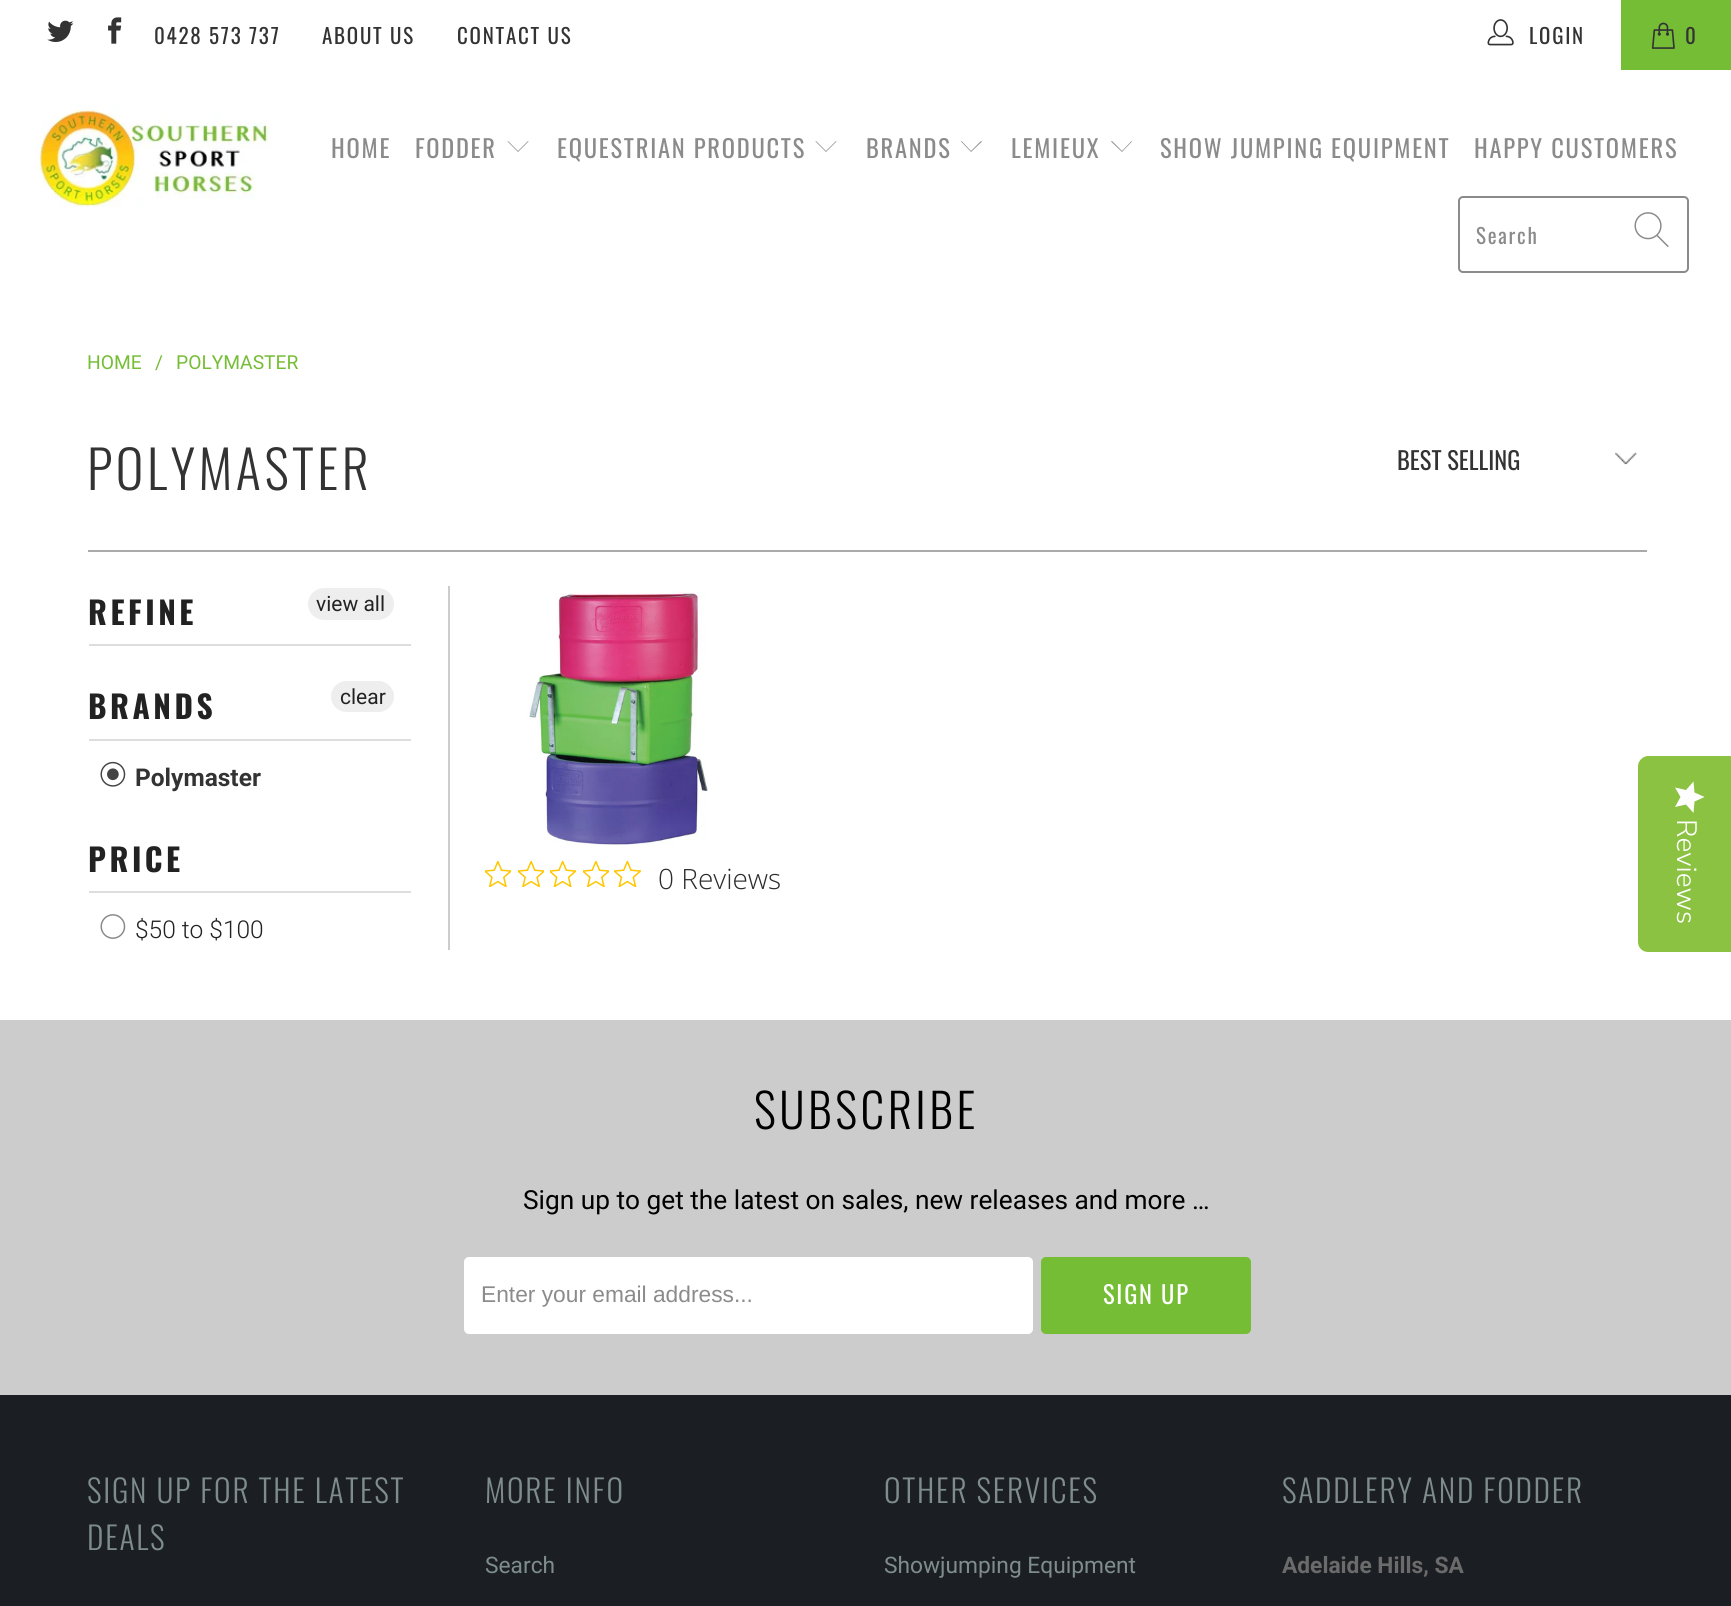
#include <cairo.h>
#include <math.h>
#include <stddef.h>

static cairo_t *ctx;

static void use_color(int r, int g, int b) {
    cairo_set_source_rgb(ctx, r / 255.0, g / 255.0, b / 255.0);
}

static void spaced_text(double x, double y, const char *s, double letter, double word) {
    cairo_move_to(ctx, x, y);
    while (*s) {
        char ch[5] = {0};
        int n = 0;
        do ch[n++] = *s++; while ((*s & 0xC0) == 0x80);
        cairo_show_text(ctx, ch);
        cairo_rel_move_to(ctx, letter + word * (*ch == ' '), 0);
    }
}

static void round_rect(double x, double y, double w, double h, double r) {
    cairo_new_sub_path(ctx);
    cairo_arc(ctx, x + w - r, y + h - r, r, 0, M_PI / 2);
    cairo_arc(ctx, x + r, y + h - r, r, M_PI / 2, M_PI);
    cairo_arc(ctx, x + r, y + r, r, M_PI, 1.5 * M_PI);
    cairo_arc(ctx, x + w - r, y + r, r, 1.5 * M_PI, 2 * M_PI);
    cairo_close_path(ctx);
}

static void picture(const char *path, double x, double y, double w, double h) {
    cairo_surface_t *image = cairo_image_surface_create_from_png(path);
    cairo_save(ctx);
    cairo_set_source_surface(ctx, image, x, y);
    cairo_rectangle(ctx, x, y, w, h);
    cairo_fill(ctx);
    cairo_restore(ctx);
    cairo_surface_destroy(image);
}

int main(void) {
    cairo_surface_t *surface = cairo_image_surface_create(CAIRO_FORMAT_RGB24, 1731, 1606);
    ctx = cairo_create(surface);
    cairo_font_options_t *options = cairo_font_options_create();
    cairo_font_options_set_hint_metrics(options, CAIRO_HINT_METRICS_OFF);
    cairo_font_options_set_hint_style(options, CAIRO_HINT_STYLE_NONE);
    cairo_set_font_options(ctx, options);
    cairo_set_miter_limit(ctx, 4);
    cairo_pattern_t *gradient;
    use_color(255, 255, 255);
    cairo_paint(ctx);
    picture("img1.png", 47, 20, 27, 22);
    picture("img2.png", 108, 17, 14, 27);
    cairo_select_font_face(ctx, "Oswald", CAIRO_FONT_SLANT_NORMAL, CAIRO_FONT_WEIGHT_NORMAL);
    cairo_set_font_size(ctx, 21);
    use_color(51, 51, 51);
    spaced_text(154, 44, "0428 573 737", 1.75, 0);
    spaced_text(322, 44, "ABOUT US", 1.75, 0);
    spaced_text(457, 44, "CONTACT US", 1.75, 0);
    picture("img3.png", 1487, 19, 27, 27);
    spaced_text(1529, 44, "LOGIN", 1.75, 0);
    use_color(118, 189, 54);
    cairo_rectangle(ctx, 1621, 0, 110, 70);
    cairo_fill(ctx);
    picture("img4.png", 1651, 22, 24, 27);
    use_color(51, 51, 51);
    spaced_text(1685, 44, "0", 1.75, 0);
    picture("img5.png", 35, 105, 236, 102);
    cairo_set_font_size(ctx, 24.5);
    use_color(140, 139, 139);
    spaced_text(331, 158, "HOME", 1.75, 0);
    spaced_text(415, 158, "FODDER", 1.75, 0);
    cairo_new_path(ctx);
    cairo_move_to(ctx, 518, 152);
    cairo_line_to(ctx, 507.5, 141.5);
    cairo_line_to(ctx, 508, 141);
    cairo_line_to(ctx, 518, 151);
    cairo_line_to(ctx, 528, 141);
    cairo_line_to(ctx, 528.5, 141.5);
    cairo_close_path(ctx);
    cairo_fill(ctx);
    spaced_text(557, 158, "EQUESTRIAN PRODUCTS", 1.75, 0);
    cairo_new_path(ctx);
    cairo_move_to(ctx, 826, 152);
    cairo_line_to(ctx, 815.5, 141.5);
    cairo_line_to(ctx, 816, 141);
    cairo_line_to(ctx, 826, 151);
    cairo_line_to(ctx, 836, 141);
    cairo_line_to(ctx, 836.5, 141.5);
    cairo_close_path(ctx);
    cairo_fill(ctx);
    spaced_text(866, 158, "BRANDS", 1.75, 0);
    cairo_new_path(ctx);
    cairo_move_to(ctx, 971, 152);
    cairo_line_to(ctx, 961, 141.5);
    cairo_line_to(ctx, 961.5, 141);
    cairo_line_to(ctx, 971, 151);
    cairo_line_to(ctx, 981, 141);
    cairo_line_to(ctx, 982, 141.5);
    cairo_close_path(ctx);
    cairo_fill(ctx);
    spaced_text(1011, 158, "LEMIEUX", 1.75, 0);
    cairo_new_path(ctx);
    cairo_move_to(ctx, 1122, 152);
    cairo_line_to(ctx, 1111, 141.5);
    cairo_line_to(ctx, 1112, 141);
    cairo_line_to(ctx, 1122, 151);
    cairo_line_to(ctx, 1131.5, 141);
    cairo_line_to(ctx, 1132, 141.5);
    cairo_close_path(ctx);
    cairo_fill(ctx);
    spaced_text(1160, 158, "SHOW JUMPING EQUIPMENT", 1.75, 0);
    spaced_text(1474, 158, "HAPPY CUSTOMERS", 1.75, 0);
    round_rect(1459, 197, 229, 75, 4);
    cairo_stroke(ctx);
    cairo_set_font_size(ctx, 21);
    spaced_text(1476, 244, "Search", 1.75, 0);
    picture("img6.png", 1634, 212, 35, 36);
    cairo_select_font_face(ctx, "Roboto", CAIRO_FONT_SLANT_NORMAL, CAIRO_FONT_WEIGHT_NORMAL);
    cairo_set_font_size(ctx, 19.25);
    use_color(118, 189, 54);
    cairo_move_to(ctx, 87, 369);
    cairo_show_text(ctx, "HOME");
    cairo_move_to(ctx, 155, 369);
    cairo_show_text(ctx, "/");
    cairo_move_to(ctx, 176, 369);
    cairo_show_text(ctx, "POLYMASTER");
    cairo_select_font_face(ctx, "Oswald Light", CAIRO_FONT_SLANT_NORMAL, CAIRO_FONT_WEIGHT_NORMAL);
    cairo_set_font_size(ctx, 52.5);
    use_color(51, 51, 51);
    spaced_text(87, 490, "POLYMASTER", 3.5, 0);
    picture("img7.png", 1615, 452, 22, 13);
    cairo_select_font_face(ctx, "Oswald", CAIRO_FONT_SLANT_NORMAL, CAIRO_FONT_WEIGHT_NORMAL);
    cairo_set_font_size(ctx, 24.5);
    cairo_move_to(ctx, 1397, 470);
    cairo_show_text(ctx, "BEST SELLING");
    use_color(170, 170, 170);
    cairo_rectangle(ctx, 88, 550, 1559, 2);
    cairo_fill(ctx);
    use_color(204, 204, 204);
    cairo_rectangle(ctx, 448, 586, 2, 364);
    cairo_fill(ctx);
    use_color(221, 221, 221);
    cairo_rectangle(ctx, 89, 644, 322, 2);
    cairo_fill(ctx);
    cairo_select_font_face(ctx, "Oswald", CAIRO_FONT_SLANT_NORMAL, CAIRO_FONT_WEIGHT_BOLD);
    cairo_set_font_size(ctx, 31.5);
    use_color(34, 34, 34);
    spaced_text(88, 625, "REFINE", 3.5, 0);
    use_color(238, 238, 238);
    round_rect(308, 588, 86, 32, 16);
    cairo_fill(ctx);
    cairo_select_font_face(ctx, "Roboto", CAIRO_FONT_SLANT_NORMAL, CAIRO_FONT_WEIGHT_NORMAL);
    cairo_set_font_size(ctx, 21);
    use_color(34, 34, 34);
    cairo_move_to(ctx, 316, 611);
    cairo_show_text(ctx, "view all");
    use_color(221, 221, 221);
    cairo_rectangle(ctx, 89, 739, 322, 2);
    cairo_fill(ctx);
    cairo_select_font_face(ctx, "Oswald", CAIRO_FONT_SLANT_NORMAL, CAIRO_FONT_WEIGHT_BOLD);
    cairo_set_font_size(ctx, 31.5);
    use_color(34, 34, 34);
    spaced_text(88, 719, "BRANDS", 3.5, 0);
    use_color(238, 238, 238);
    round_rect(331, 681, 63, 31, 15.5);
    cairo_fill(ctx);
    cairo_select_font_face(ctx, "Roboto", CAIRO_FONT_SLANT_NORMAL, CAIRO_FONT_WEIGHT_NORMAL);
    cairo_set_font_size(ctx, 21);
    use_color(34, 34, 34);
    cairo_move_to(ctx, 340, 704);
    cairo_show_text(ctx, "clear");
    picture("img8.png", 100, 761, 26, 26);
    cairo_select_font_face(ctx, "Roboto", CAIRO_FONT_SLANT_NORMAL, CAIRO_FONT_WEIGHT_BOLD);
    cairo_set_font_size(ctx, 24.5);
    use_color(51, 51, 51);
    cairo_move_to(ctx, 135, 786);
    cairo_show_text(ctx, "Polymaster");
    use_color(221, 221, 221);
    cairo_rectangle(ctx, 89, 891, 322, 2);
    cairo_fill(ctx);
    cairo_select_font_face(ctx, "Oswald", CAIRO_FONT_SLANT_NORMAL, CAIRO_FONT_WEIGHT_BOLD);
    cairo_set_font_size(ctx, 31.5);
    use_color(34, 34, 34);
    spaced_text(88, 872, "PRICE", 3.5, 0);
    picture("img9.png", 100, 914, 26, 25);
    cairo_select_font_face(ctx, "Roboto Light", CAIRO_FONT_SLANT_NORMAL, CAIRO_FONT_WEIGHT_NORMAL);
    cairo_set_font_size(ctx, 24.5);
    cairo_move_to(ctx, 135, 938);
    cairo_show_text(ctx, "$50 to $100");
    picture("img10.png", 527, 591, 181, 254);
    picture("img11.png", 485, 861, 26, 26);
    picture("img12.png", 518, 861, 26, 26);
    picture("img13.png", 550, 861, 26, 26);
    picture("img11.png", 583, 861, 26, 26);
    picture("img14.png", 614, 861, 27, 26);
    cairo_select_font_face(ctx, "Open Sans Light", CAIRO_FONT_SLANT_NORMAL, CAIRO_FONT_WEIGHT_NORMAL);
    cairo_set_font_size(ctx, 28);
    use_color(44, 44, 44);
    cairo_move_to(ctx, 658, 889);
    cairo_show_text(ctx, "0 Reviews");
    use_color(139, 194, 66);
    cairo_new_path(ctx);
    cairo_move_to(ctx, 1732, 756);
    cairo_line_to(ctx, 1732, 952);
    cairo_line_to(ctx, 1648, 952);
    cairo_curve_to(ctx, 1643, 952, 1638, 948, 1638, 942);
    cairo_line_to(ctx, 1638, 766);
    cairo_curve_to(ctx, 1638, 761, 1643, 756, 1648, 756);
    cairo_close_path(ctx);
    cairo_fill(ctx);
    gradient = cairo_pattern_create_linear(1705, 781, 1705, 813);
    cairo_pattern_add_color_stop_rgba(gradient, 1, 0.996, 0.996, 0.996, 1);
    cairo_pattern_add_color_stop_rgba(gradient, 1, 0.918, 0.918, 0.918, 1);
    cairo_set_source(ctx, gradient);
    cairo_pattern_destroy(gradient);
    cairo_new_path(ctx);
    cairo_move_to(ctx, 1680.5, 797);
    cairo_line_to(ctx, 1675, 807);
    cairo_line_to(ctx, 1686, 804.5);
    cairo_line_to(ctx, 1693.5, 813);
    cairo_line_to(ctx, 1694.5, 801.5);
    cairo_line_to(ctx, 1704.5, 797);
    cairo_line_to(ctx, 1694.5, 792.5);
    cairo_line_to(ctx, 1693.5, 781.5);
    cairo_line_to(ctx, 1686, 790);
    cairo_line_to(ctx, 1675, 787.5);
    cairo_close_path(ctx);
    cairo_fill(ctx);
    cairo_select_font_face(ctx, "Nunito Sans Light", CAIRO_FONT_SLANT_NORMAL, CAIRO_FONT_WEIGHT_NORMAL);
    use_color(255, 255, 255);
    cairo_save(ctx);
    cairo_translate(ctx, 1677, 819);
    cairo_rotate(ctx, 90 * M_PI / 180);
    cairo_move_to(ctx, 0, 0);
    cairo_show_text(ctx, "Reviews");
    cairo_restore(ctx);
    use_color(204, 204, 204);
    cairo_rectangle(ctx, 0, 1020, 1731, 375);
    cairo_fill(ctx);
    cairo_select_font_face(ctx, "Oswald Light", CAIRO_FONT_SLANT_NORMAL, CAIRO_FONT_WEIGHT_NORMAL);
    cairo_set_font_size(ctx, 47.25);
    use_color(0, 0, 0);
    spaced_text(754, 1129, "SUBSCRIBE", 3.5, 0);
    cairo_select_font_face(ctx, "Roboto", CAIRO_FONT_SLANT_NORMAL, CAIRO_FONT_WEIGHT_NORMAL);
    cairo_set_font_size(ctx, 26.25);
    cairo_move_to(ctx, 523, 1209);
    cairo_show_text(ctx, "Sign up to get the latest on sales, new releases and more …");
    use_color(255, 255, 255);
    round_rect(464, 1257, 569, 77, 5);
    cairo_fill(ctx);
    cairo_select_font_face(ctx, "Liberation Sans", CAIRO_FONT_SLANT_NORMAL, CAIRO_FONT_WEIGHT_NORMAL);
    cairo_set_font_size(ctx, 22.75);
    use_color(140, 139, 139);
    cairo_move_to(ctx, 481, 1302);
    cairo_show_text(ctx, "Enter your email address...");
    use_color(118, 189, 54);
    round_rect(1042, 1258, 208, 75, 4);
    cairo_fill_preserve(ctx);
    cairo_stroke(ctx);
    cairo_select_font_face(ctx, "Oswald", CAIRO_FONT_SLANT_NORMAL, CAIRO_FONT_WEIGHT_NORMAL);
    cairo_set_font_size(ctx, 24.5);
    use_color(255, 255, 255);
    spaced_text(1103, 1304, "SIGN UP", 1.75, 0);
    use_color(27, 31, 35);
    cairo_rectangle(ctx, 0, 1395, 1731, 211);
    cairo_fill(ctx);
    cairo_select_font_face(ctx, "Oswald Light", CAIRO_FONT_SLANT_NORMAL, CAIRO_FONT_WEIGHT_NORMAL);
    cairo_set_font_size(ctx, 31.5);
    use_color(127, 140, 141);
    spaced_text(87, 1503, "SIGN UP FOR THE LATEST", 1.75, 0);
    spaced_text(87, 1550, "DEALS", 1.75, 0);
    spaced_text(485, 1503, "MORE INFO", 1.75, 0);
    cairo_select_font_face(ctx, "Roboto", CAIRO_FONT_SLANT_NORMAL, CAIRO_FONT_WEIGHT_NORMAL);
    cairo_set_font_size(ctx, 22.75);
    cairo_move_to(ctx, 485, 1573);
    cairo_show_text(ctx, "Search");
    cairo_select_font_face(ctx, "Oswald Light", CAIRO_FONT_SLANT_NORMAL, CAIRO_FONT_WEIGHT_NORMAL);
    cairo_set_font_size(ctx, 31.5);
    spaced_text(884, 1503, "OTHER SERVICES", 1.75, 0);
    cairo_select_font_face(ctx, "Roboto", CAIRO_FONT_SLANT_NORMAL, CAIRO_FONT_WEIGHT_NORMAL);
    cairo_set_font_size(ctx, 22.75);
    cairo_move_to(ctx, 884, 1573);
    cairo_show_text(ctx, "Showjumping Equipment");
    cairo_select_font_face(ctx, "Oswald Light", CAIRO_FONT_SLANT_NORMAL, CAIRO_FONT_WEIGHT_NORMAL);
    cairo_set_font_size(ctx, 31.5);
    spaced_text(1282, 1503, "SADDLERY AND FODDER", 1.75, 0);
    cairo_select_font_face(ctx, "Roboto", CAIRO_FONT_SLANT_NORMAL, CAIRO_FONT_WEIGHT_BOLD);
    cairo_set_font_size(ctx, 22.75);
    use_color(107, 107, 107);
    cairo_move_to(ctx, 1282, 1573);
    cairo_show_text(ctx, "Adelaide Hills, SA");
    cairo_surface_write_to_png(surface, "result.png");
    cairo_font_options_destroy(options);
    cairo_destroy(ctx);
    cairo_surface_destroy(surface);
    return 0;
}
